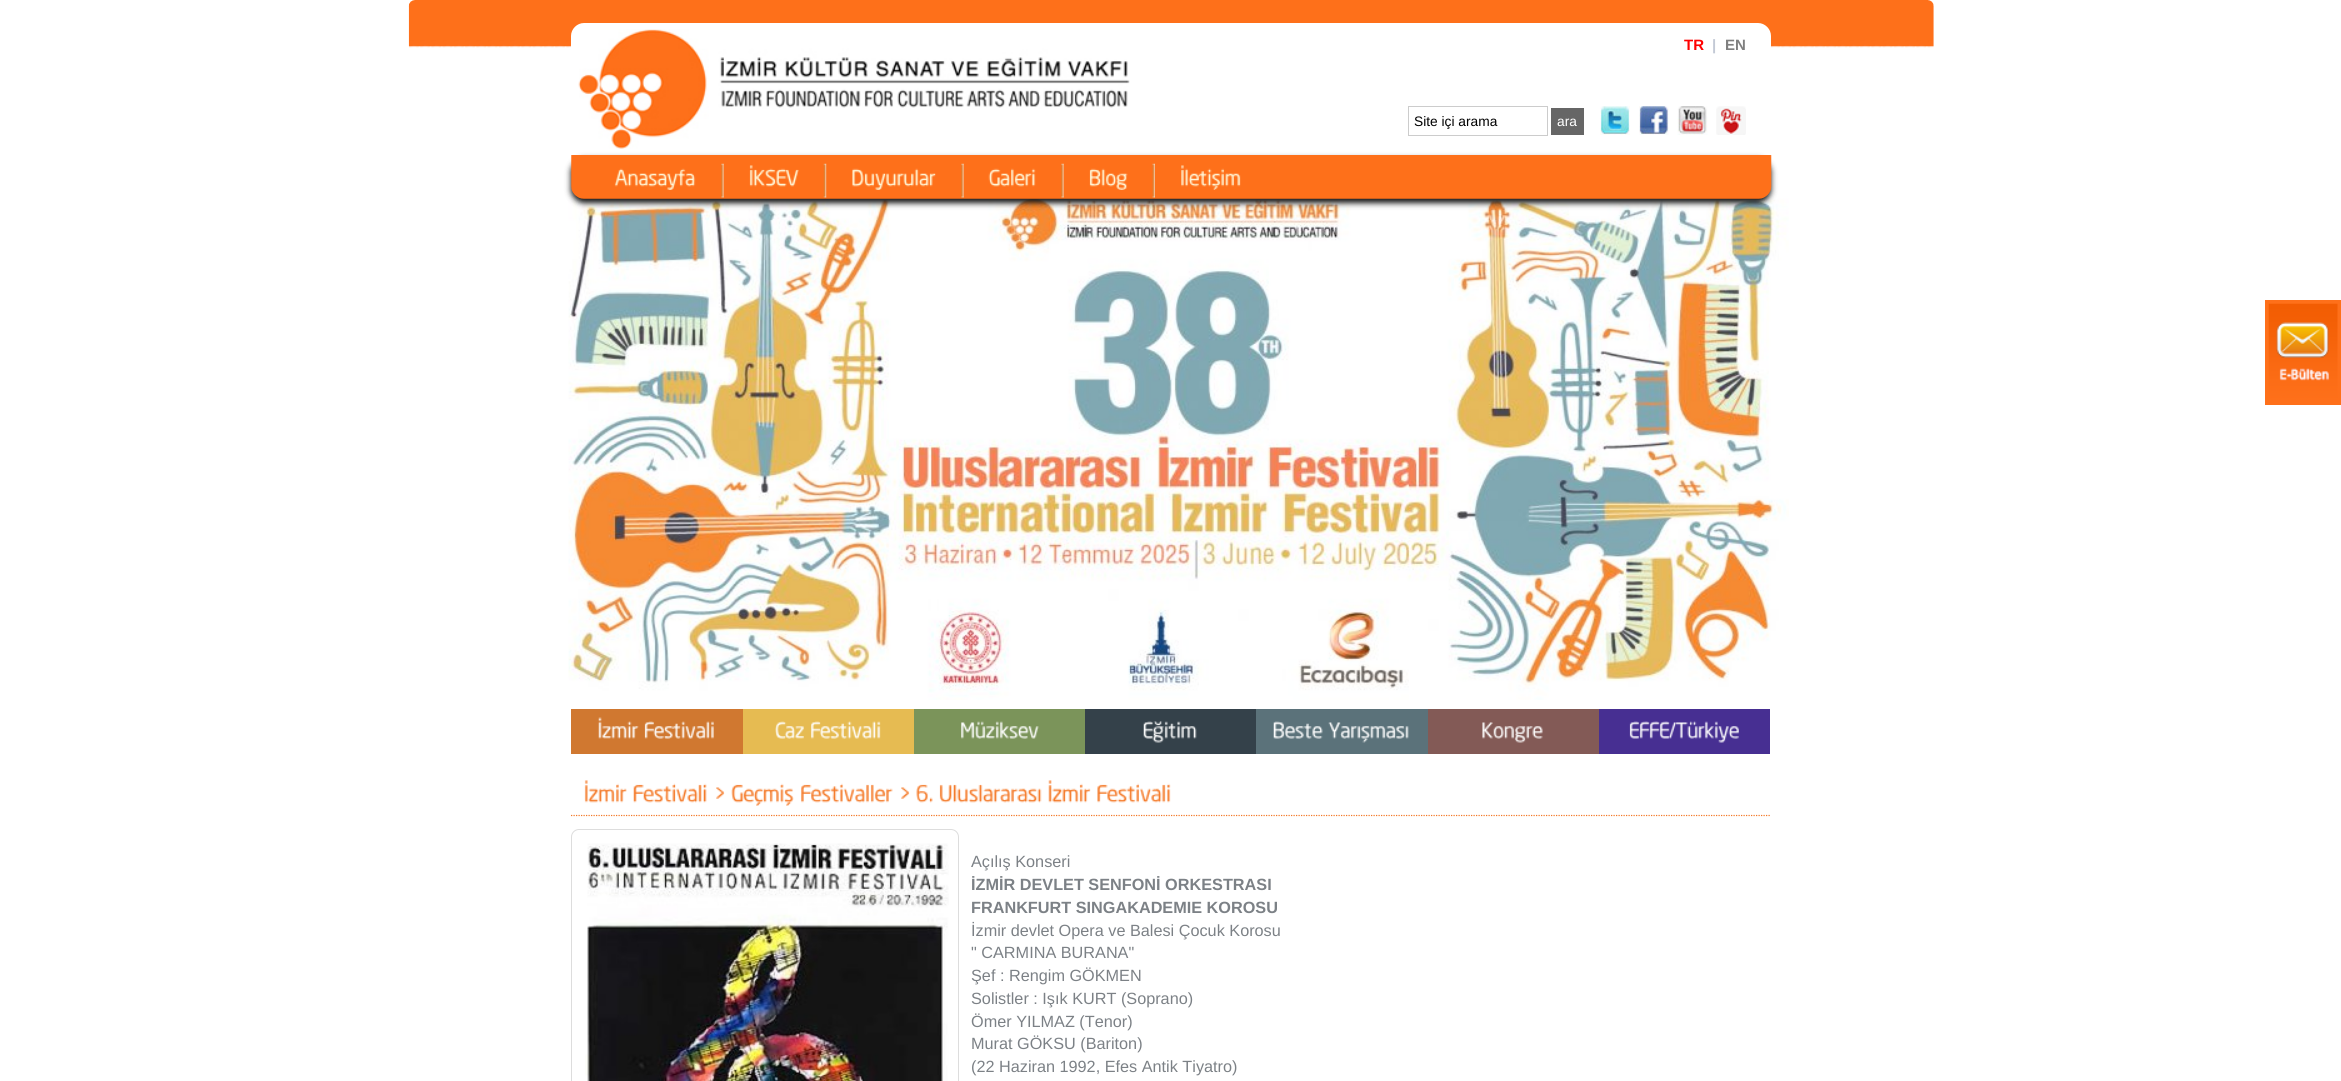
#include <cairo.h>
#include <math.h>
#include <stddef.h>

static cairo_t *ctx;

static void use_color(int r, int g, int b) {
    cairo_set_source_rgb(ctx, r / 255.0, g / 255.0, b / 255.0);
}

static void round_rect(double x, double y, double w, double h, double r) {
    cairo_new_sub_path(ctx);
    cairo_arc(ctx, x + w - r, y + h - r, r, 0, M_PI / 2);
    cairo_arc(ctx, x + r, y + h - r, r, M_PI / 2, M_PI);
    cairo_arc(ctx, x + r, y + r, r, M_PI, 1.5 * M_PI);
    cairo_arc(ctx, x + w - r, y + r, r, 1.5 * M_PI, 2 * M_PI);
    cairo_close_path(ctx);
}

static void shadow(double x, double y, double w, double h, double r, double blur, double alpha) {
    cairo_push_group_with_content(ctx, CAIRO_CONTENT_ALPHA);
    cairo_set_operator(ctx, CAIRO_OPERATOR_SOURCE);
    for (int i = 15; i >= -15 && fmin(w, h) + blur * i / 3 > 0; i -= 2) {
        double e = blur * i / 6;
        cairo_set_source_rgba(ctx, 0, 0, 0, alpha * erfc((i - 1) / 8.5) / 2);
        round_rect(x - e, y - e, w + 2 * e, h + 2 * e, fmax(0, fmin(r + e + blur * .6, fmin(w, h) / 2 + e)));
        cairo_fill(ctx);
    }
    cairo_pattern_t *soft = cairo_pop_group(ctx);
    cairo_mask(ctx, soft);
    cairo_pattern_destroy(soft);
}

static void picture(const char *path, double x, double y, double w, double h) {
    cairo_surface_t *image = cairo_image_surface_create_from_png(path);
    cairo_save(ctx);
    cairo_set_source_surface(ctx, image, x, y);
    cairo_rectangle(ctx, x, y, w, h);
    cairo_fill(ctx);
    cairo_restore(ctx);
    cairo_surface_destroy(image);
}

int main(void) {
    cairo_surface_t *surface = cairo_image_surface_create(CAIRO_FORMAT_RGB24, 2341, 1081);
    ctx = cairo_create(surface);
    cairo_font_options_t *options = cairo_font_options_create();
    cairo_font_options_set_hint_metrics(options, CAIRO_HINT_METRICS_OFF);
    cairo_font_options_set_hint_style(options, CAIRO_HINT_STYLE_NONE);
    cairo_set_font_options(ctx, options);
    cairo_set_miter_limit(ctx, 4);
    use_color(255, 255, 255);
    cairo_paint(ctx);
    picture("img1.png", 408, 0, 1526, 48);
    use_color(255, 255, 255);
    cairo_new_path(ctx);
    cairo_move_to(ctx, 584, 23);
    cairo_line_to(ctx, 1758, 23);
    cairo_curve_to(ctx, 1765, 23, 1771, 29, 1771, 36);
    cairo_line_to(ctx, 1771, 155);
    cairo_line_to(ctx, 571, 155);
    cairo_line_to(ctx, 571, 36);
    cairo_curve_to(ctx, 571, 29, 577, 23, 584, 23);
    cairo_close_path(ctx);
    cairo_fill(ctx);
    picture("img2.png", 578, 29, 552, 120);
    cairo_select_font_face(ctx, "Liberation Sans", CAIRO_FONT_SLANT_NORMAL, CAIRO_FONT_WEIGHT_BOLD);
    cairo_set_font_size(ctx, 15);
    use_color(255, 0, 0);
    cairo_move_to(ctx, 1684, 50);
    cairo_show_text(ctx, "TR");
    use_color(195, 201, 213);
    cairo_move_to(ctx, 1712, 50);
    cairo_show_text(ctx, "|");
    use_color(127, 127, 127);
    cairo_move_to(ctx, 1725, 50);
    cairo_show_text(ctx, "EN");
    picture("img3.png", 1600, 106, 30, 29);
    picture("img4.png", 1639, 106, 30, 29);
    picture("img5.png", 1677, 106, 31, 29);
    picture("img6.png", 1716, 106, 30, 29);
    cairo_rectangle(ctx, 1408.5, 106.5, 139, 29);
    use_color(204, 204, 204);
    cairo_set_line_width(ctx, 1);
    cairo_stroke(ctx);
    cairo_select_font_face(ctx, "Liberation Sans", CAIRO_FONT_SLANT_NORMAL, CAIRO_FONT_WEIGHT_NORMAL);
    cairo_set_font_size(ctx, 13.75);
    use_color(0, 0, 0);
    cairo_move_to(ctx, 1414, 126);
    cairo_show_text(ctx, "Site içi arama");
    use_color(102, 102, 102);
    cairo_rectangle(ctx, 1551, 108, 33, 27);
    cairo_fill(ctx);
    use_color(255, 255, 255);
    cairo_move_to(ctx, 1557, 126);
    cairo_show_text(ctx, "ara");
    picture("img27.png", 568, 184, 1221, 516);
    use_color(19, 19, 19);
    shadow(571, 159, 1200, 44, 13, 3, 1);
    picture("img7.png", 571, 155, 1201, 44);
    picture("img8.png", 614, 168, 82, 22);
    picture("img9.png", 721, 163, 3, 35);
    picture("img10.png", 749, 165, 50, 22);
    picture("img11.png", 823, 163, 4, 35);
    picture("img12.png", 852, 168, 84, 22);
    picture("img9.png", 961, 163, 3, 35);
    picture("img13.png", 988, 168, 48, 19);
    picture("img9.png", 1061, 163, 3, 35);
    picture("img14.png", 1089, 168, 39, 22);
    picture("img15.png", 1152, 163, 3, 35);
    picture("img16.png", 1181, 165, 60, 25);
    use_color(208, 120, 48);
    cairo_rectangle(ctx, 571, 709, 172, 45);
    cairo_fill(ctx);
    picture("img17.png", 598, 717, 41, 22);
    picture("img18.png", 644, 721, 70, 18);
    use_color(230, 187, 82);
    cairo_rectangle(ctx, 743, 709, 171, 45);
    cairo_fill(ctx);
    picture("img19.png", 775, 721, 29, 18);
    picture("img20.png", 811, 721, 70, 18);
    use_color(123, 148, 90);
    cairo_rectangle(ctx, 914, 709, 171, 45);
    cairo_fill(ctx);
    picture("img21.png", 961, 721, 78, 18);
    use_color(52, 65, 74);
    cairo_rectangle(ctx, 1085, 709, 171, 45);
    cairo_fill(ctx);
    picture("img22.png", 1143, 721, 54, 22);
    use_color(91, 114, 122);
    cairo_rectangle(ctx, 1256, 709, 172, 45);
    cairo_fill(ctx);
    picture("img23.png", 1273, 721, 50, 18);
    picture("img24.png", 1328, 722, 81, 21);
    use_color(131, 90, 86);
    cairo_rectangle(ctx, 1428, 709, 171, 45);
    cairo_fill(ctx);
    picture("img25.png", 1482, 722, 61, 21);
    use_color(71, 47, 146);
    cairo_rectangle(ctx, 1599, 709, 171, 45);
    cairo_fill(ctx);
    picture("img26.png", 1629, 721, 110, 22);
    cairo_new_path(ctx);
    cairo_move_to(ctx, 571, 815.5);
    cairo_line_to(ctx, 1771, 815.5);
    use_color(244, 120, 38);
    cairo_set_line_width(ctx, 1.2);
    cairo_set_dash(ctx, (double[]){1.25, 1.25}, 2, 0);
    cairo_stroke(ctx);
    picture("img28.png", 584, 780, 43, 23);
    picture("img29.png", 633, 783, 74, 20);
    picture("img30.png", 716, 787, 9, 12);
    picture("img31.png", 731, 783, 63, 23);
    picture("img32.png", 801, 783, 92, 20);
    picture("img30.png", 901, 787, 9, 12);
    picture("img33.png", 916, 784, 17, 19);
    picture("img34.png", 939, 784, 103, 19);
    picture("img35.png", 1048, 780, 43, 23);
    picture("img36.png", 1097, 783, 74, 20);
    round_rect(571.5, 829.5, 387, 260, 7.5);
    use_color(221, 221, 221);
    cairo_set_line_width(ctx, 1);
    cairo_set_dash(ctx, NULL, 0, 0);
    cairo_stroke(ctx);
    picture("img37.png", 585, 843, 364, 238);
    cairo_set_font_size(ctx, 16.25);
    use_color(124, 129, 134);
    cairo_move_to(ctx, 971, 867);
    cairo_show_text(ctx, "Açılış Konseri");
    cairo_select_font_face(ctx, "Liberation Sans", CAIRO_FONT_SLANT_NORMAL, CAIRO_FONT_WEIGHT_BOLD);
    cairo_move_to(ctx, 971, 890);
    cairo_show_text(ctx, "İZMİR DEVLET SENFONİ ORKESTRASI");
    cairo_move_to(ctx, 971, 913);
    cairo_show_text(ctx, "FRANKFURT SINGAKADEMIE KOROSU");
    cairo_select_font_face(ctx, "Liberation Sans", CAIRO_FONT_SLANT_NORMAL, CAIRO_FONT_WEIGHT_NORMAL);
    cairo_move_to(ctx, 971, 936);
    cairo_show_text(ctx, "İzmir devlet Opera ve Balesi Çocuk Korosu");
    cairo_move_to(ctx, 971, 958);
    cairo_show_text(ctx, "\" CARMINA BURANA\"");
    cairo_move_to(ctx, 971, 981);
    cairo_show_text(ctx, "Şef : Rengim GÖKMEN");
    cairo_move_to(ctx, 971, 1004);
    cairo_show_text(ctx, "Solistler : Işık KURT (Soprano)");
    cairo_move_to(ctx, 971, 1027);
    cairo_show_text(ctx, "Ömer YILMAZ (Tenor)");
    cairo_move_to(ctx, 971, 1049);
    cairo_show_text(ctx, "Murat GÖKSU (Bariton)");
    cairo_move_to(ctx, 971, 1072);
    cairo_show_text(ctx, "(22 Haziran 1992, Efes Antik Tiyatro)");
    cairo_rectangle(ctx, 2267, 302, 72, 101);
    use_color(254, 112, 26);
    cairo_set_line_width(ctx, 4);
    cairo_stroke(ctx);
    picture("img38.png", 2268, 303, 70, 98);
    cairo_surface_write_to_png(surface, "result.png");
    cairo_font_options_destroy(options);
    cairo_destroy(ctx);
    cairo_surface_destroy(surface);
    return 0;
}
